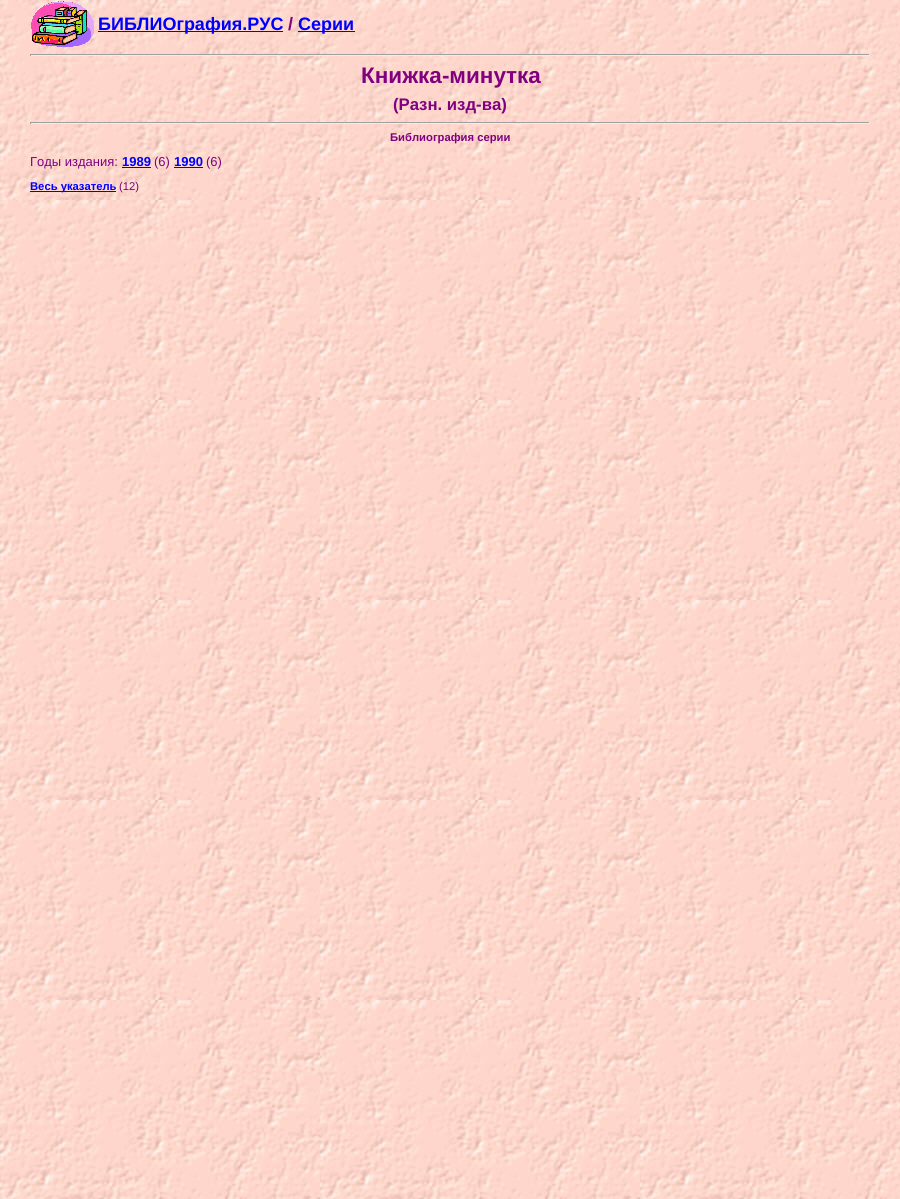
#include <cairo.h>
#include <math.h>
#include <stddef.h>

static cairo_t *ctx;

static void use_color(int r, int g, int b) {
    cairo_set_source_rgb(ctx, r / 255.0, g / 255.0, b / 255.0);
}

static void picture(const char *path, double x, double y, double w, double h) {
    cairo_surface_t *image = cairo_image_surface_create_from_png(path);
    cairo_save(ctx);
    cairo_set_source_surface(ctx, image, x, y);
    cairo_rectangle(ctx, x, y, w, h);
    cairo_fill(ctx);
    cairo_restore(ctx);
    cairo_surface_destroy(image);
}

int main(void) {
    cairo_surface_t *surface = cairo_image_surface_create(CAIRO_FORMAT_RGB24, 900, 1199);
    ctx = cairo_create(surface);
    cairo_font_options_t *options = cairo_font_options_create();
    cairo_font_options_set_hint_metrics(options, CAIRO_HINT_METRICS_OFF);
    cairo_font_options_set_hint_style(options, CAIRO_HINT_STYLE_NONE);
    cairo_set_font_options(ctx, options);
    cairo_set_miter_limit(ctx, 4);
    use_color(255, 255, 255);
    cairo_paint(ctx);
    picture("img1.png", 0, 0, 900, 1199);
    picture("img2.png", 31, 1, 63, 46);
    use_color(0, 0, 255);
    cairo_rectangle(ctx, 98, 31, 185, 1);
    cairo_fill(ctx);
    cairo_select_font_face(ctx, "Liberation Sans", CAIRO_FONT_SLANT_NORMAL, CAIRO_FONT_WEIGHT_BOLD);
    cairo_set_font_size(ctx, 18);
    cairo_move_to(ctx, 98, 30);
    cairo_show_text(ctx, "БИБЛИОграфия.РУС");
    use_color(128, 0, 128);
    cairo_move_to(ctx, 288, 30);
    cairo_show_text(ctx, "/");
    use_color(0, 0, 255);
    cairo_rectangle(ctx, 298, 31, 57, 1);
    cairo_fill(ctx);
    cairo_move_to(ctx, 298, 30);
    cairo_show_text(ctx, "Серии");
    use_color(159, 159, 159);
    cairo_rectangle(ctx, 30, 54, 840, 1);
    cairo_fill(ctx);
    use_color(238, 238, 238);
    cairo_rectangle(ctx, 869, 54, 1, 2);
    cairo_fill(ctx);
    cairo_rectangle(ctx, 30, 55, 840, 1);
    cairo_fill(ctx);
    use_color(159, 159, 159);
    cairo_rectangle(ctx, 30, 54, 1, 2);
    cairo_fill(ctx);
    cairo_set_font_size(ctx, 22.5);
    use_color(128, 0, 128);
    cairo_move_to(ctx, 361, 83);
    cairo_show_text(ctx, "Книжка-минутка");
    cairo_set_font_size(ctx, 16.75);
    cairo_move_to(ctx, 393, 110);
    cairo_show_text(ctx, "(Разн. изд-ва)");
    use_color(159, 159, 159);
    cairo_rectangle(ctx, 30, 122, 840, 1);
    cairo_fill(ctx);
    use_color(238, 238, 238);
    cairo_rectangle(ctx, 869, 122, 1, 2);
    cairo_fill(ctx);
    cairo_rectangle(ctx, 30, 123, 840, 1);
    cairo_fill(ctx);
    use_color(159, 159, 159);
    cairo_rectangle(ctx, 30, 122, 1, 2);
    cairo_fill(ctx);
    cairo_set_font_size(ctx, 11.25);
    use_color(128, 0, 128);
    cairo_move_to(ctx, 390, 141);
    cairo_show_text(ctx, "Библиография серии");
    cairo_select_font_face(ctx, "Liberation Sans", CAIRO_FONT_SLANT_NORMAL, CAIRO_FONT_WEIGHT_NORMAL);
    cairo_set_font_size(ctx, 13);
    cairo_move_to(ctx, 30, 166);
    cairo_show_text(ctx, "Годы издания:");
    cairo_select_font_face(ctx, "Liberation Sans", CAIRO_FONT_SLANT_NORMAL, CAIRO_FONT_WEIGHT_BOLD);
    use_color(0, 0, 255);
    cairo_move_to(ctx, 122, 166);
    cairo_show_text(ctx, "1989");
    cairo_rectangle(ctx, 122, 167, 29, 1);
    cairo_fill(ctx);
    cairo_select_font_face(ctx, "Liberation Sans", CAIRO_FONT_SLANT_NORMAL, CAIRO_FONT_WEIGHT_NORMAL);
    use_color(128, 0, 128);
    cairo_move_to(ctx, 154, 166);
    cairo_show_text(ctx, "(6)");
    cairo_select_font_face(ctx, "Liberation Sans", CAIRO_FONT_SLANT_NORMAL, CAIRO_FONT_WEIGHT_BOLD);
    use_color(0, 0, 255);
    cairo_move_to(ctx, 174, 166);
    cairo_show_text(ctx, "1990");
    cairo_rectangle(ctx, 174, 167, 29, 1);
    cairo_fill(ctx);
    cairo_select_font_face(ctx, "Liberation Sans", CAIRO_FONT_SLANT_NORMAL, CAIRO_FONT_WEIGHT_NORMAL);
    use_color(128, 0, 128);
    cairo_move_to(ctx, 206, 166);
    cairo_show_text(ctx, "(6)");
    use_color(0, 0, 255);
    cairo_rectangle(ctx, 30, 191, 86, 1);
    cairo_fill(ctx);
    cairo_select_font_face(ctx, "Liberation Sans", CAIRO_FONT_SLANT_NORMAL, CAIRO_FONT_WEIGHT_BOLD);
    cairo_set_font_size(ctx, 11.25);
    cairo_move_to(ctx, 30, 190);
    cairo_show_text(ctx, "Весь указатель");
    cairo_select_font_face(ctx, "Liberation Sans", CAIRO_FONT_SLANT_NORMAL, CAIRO_FONT_WEIGHT_NORMAL);
    use_color(128, 0, 128);
    cairo_move_to(ctx, 119, 190);
    cairo_show_text(ctx, "(12)");
    cairo_surface_write_to_png(surface, "result.png");
    cairo_font_options_destroy(options);
    cairo_destroy(ctx);
    cairo_surface_destroy(surface);
    return 0;
}
